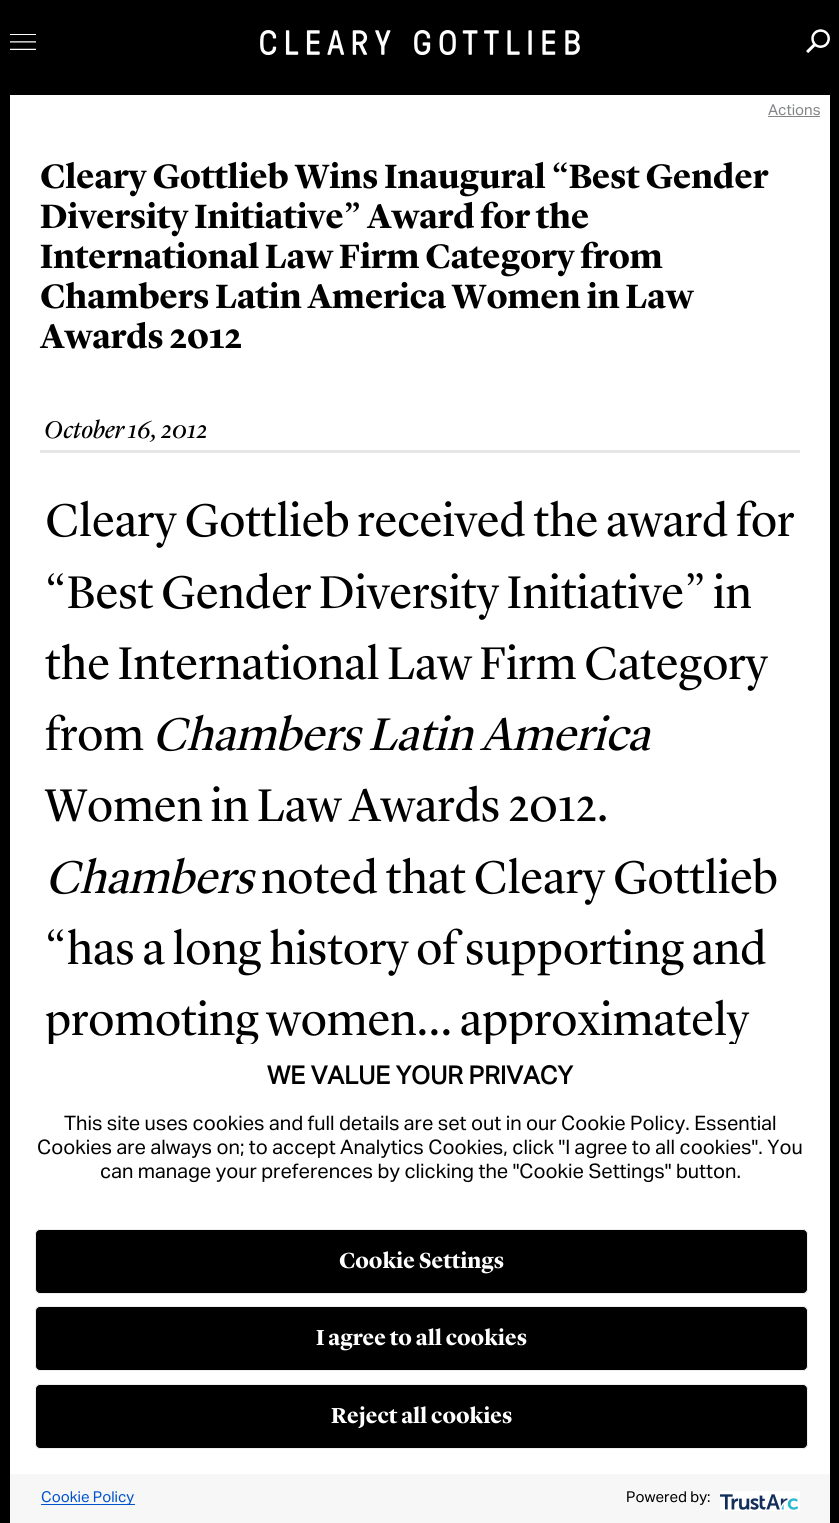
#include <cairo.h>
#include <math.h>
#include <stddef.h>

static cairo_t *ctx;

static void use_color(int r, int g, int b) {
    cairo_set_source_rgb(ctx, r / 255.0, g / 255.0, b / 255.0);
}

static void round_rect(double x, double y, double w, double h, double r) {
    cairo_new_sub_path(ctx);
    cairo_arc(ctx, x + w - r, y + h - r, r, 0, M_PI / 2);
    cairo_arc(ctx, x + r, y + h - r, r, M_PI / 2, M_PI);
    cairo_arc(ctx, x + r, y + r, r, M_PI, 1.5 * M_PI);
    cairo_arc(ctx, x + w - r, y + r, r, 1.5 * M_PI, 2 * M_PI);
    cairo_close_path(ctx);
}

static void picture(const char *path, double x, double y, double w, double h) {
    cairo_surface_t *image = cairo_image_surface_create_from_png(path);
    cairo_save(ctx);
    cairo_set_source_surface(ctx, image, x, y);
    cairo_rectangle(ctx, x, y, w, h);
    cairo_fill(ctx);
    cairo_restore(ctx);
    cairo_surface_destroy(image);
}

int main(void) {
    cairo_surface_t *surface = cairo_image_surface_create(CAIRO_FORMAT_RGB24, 839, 1523);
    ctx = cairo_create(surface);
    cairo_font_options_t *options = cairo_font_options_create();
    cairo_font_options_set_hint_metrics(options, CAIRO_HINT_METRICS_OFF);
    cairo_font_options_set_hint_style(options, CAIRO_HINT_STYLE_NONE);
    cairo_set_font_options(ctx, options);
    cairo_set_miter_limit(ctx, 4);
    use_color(0, 0, 0);
    cairo_paint(ctx);
    picture("img1.png", 10, 34, 26, 16);
    picture("img2.png", 260, 30, 320, 25);
    picture("img3.png", 806, 29, 24, 24);
    use_color(255, 255, 255);
    cairo_rectangle(ctx, 10, 95, 820, 949);
    cairo_fill(ctx);
    cairo_select_font_face(ctx, "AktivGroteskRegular", CAIRO_FONT_SLANT_NORMAL, CAIRO_FONT_WEIGHT_NORMAL);
    cairo_set_font_size(ctx, 15);
    use_color(130, 132, 134);
    cairo_move_to(ctx, 768, 115);
    cairo_show_text(ctx, "Actions");
    cairo_rectangle(ctx, 768, 116, 52, 1);
    cairo_fill(ctx);
    use_color(230, 230, 230);
    cairo_rectangle(ctx, 40, 450, 760, 3);
    cairo_fill(ctx);
    cairo_select_font_face(ctx, "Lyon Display", CAIRO_FONT_SLANT_NORMAL, CAIRO_FONT_WEIGHT_BOLD);
    cairo_set_font_size(ctx, 35);
    use_color(0, 0, 0);
    cairo_move_to(ctx, 40, 188);
    cairo_show_text(ctx, "Cleary Gottlieb Wins Inaugural “Best Gender");
    cairo_move_to(ctx, 40, 228);
    cairo_show_text(ctx, "Diversity Initiative” Award for the");
    cairo_move_to(ctx, 40, 268);
    cairo_show_text(ctx, "International Law Firm Category from");
    cairo_move_to(ctx, 40, 308);
    cairo_show_text(ctx, "Chambers Latin America Women in Law");
    cairo_move_to(ctx, 40, 348);
    cairo_show_text(ctx, "Awards 2012");
    cairo_select_font_face(ctx, "Lyon Display", CAIRO_FONT_SLANT_ITALIC, CAIRO_FONT_WEIGHT_NORMAL);
    cairo_set_font_size(ctx, 25);
    cairo_move_to(ctx, 44, 438);
    cairo_show_text(ctx, "October 16, 2012");
    cairo_select_font_face(ctx, "Lyon Display", CAIRO_FONT_SLANT_NORMAL, CAIRO_FONT_WEIGHT_NORMAL);
    cairo_set_font_size(ctx, 47.5);
    cairo_move_to(ctx, 45, 536);
    cairo_show_text(ctx, "Cleary Gottlieb received the award for");
    cairo_move_to(ctx, 45, 608);
    cairo_show_text(ctx, "“Best Gender Diversity Initiative” in");
    cairo_move_to(ctx, 45, 679);
    cairo_show_text(ctx, "the International Law Firm Category");
    cairo_move_to(ctx, 45, 750);
    cairo_show_text(ctx, "from");
    cairo_select_font_face(ctx, "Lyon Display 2", CAIRO_FONT_SLANT_ITALIC, CAIRO_FONT_WEIGHT_NORMAL);
    cairo_move_to(ctx, 152, 750);
    cairo_show_text(ctx, "Chambers Latin America");
    cairo_select_font_face(ctx, "Lyon Display", CAIRO_FONT_SLANT_NORMAL, CAIRO_FONT_WEIGHT_NORMAL);
    cairo_move_to(ctx, 45, 821);
    cairo_show_text(ctx, "Women in Law Awards 2012.");
    cairo_select_font_face(ctx, "Lyon Display 2", CAIRO_FONT_SLANT_ITALIC, CAIRO_FONT_WEIGHT_NORMAL);
    cairo_move_to(ctx, 45, 893);
    cairo_show_text(ctx, "Chambers");
    cairo_select_font_face(ctx, "Lyon Display", CAIRO_FONT_SLANT_NORMAL, CAIRO_FONT_WEIGHT_NORMAL);
    cairo_move_to(ctx, 261, 893);
    cairo_show_text(ctx, "noted that Cleary Gottlieb");
    cairo_move_to(ctx, 45, 964);
    cairo_show_text(ctx, "“has a long history of supporting and");
    cairo_move_to(ctx, 45, 1035);
    cairo_show_text(ctx, "promoting women… approximately");
    use_color(255, 255, 255);
    cairo_rectangle(ctx, 10, 1044, 820, 430);
    cairo_fill(ctx);
    cairo_select_font_face(ctx, "AktivGroteskRegular", CAIRO_FONT_SLANT_NORMAL, CAIRO_FONT_WEIGHT_BOLD);
    cairo_set_font_size(ctx, 25);
    use_color(0, 0, 0);
    cairo_move_to(ctx, 267, 1084);
    cairo_show_text(ctx, "WE VALUE YOUR PRIVACY");
    cairo_select_font_face(ctx, "AktivGroteskRegular", CAIRO_FONT_SLANT_NORMAL, CAIRO_FONT_WEIGHT_NORMAL);
    cairo_set_font_size(ctx, 20);
    cairo_move_to(ctx, 64, 1130);
    cairo_show_text(ctx, "This site uses cookies and full details are set out in our Cookie Policy. Essential");
    cairo_move_to(ctx, 37, 1154);
    cairo_show_text(ctx, "Cookies are always on; to accept Analytics Cookies, click \"I agree to all cookies\". You");
    cairo_move_to(ctx, 100, 1178);
    cairo_show_text(ctx, "can manage your preferences by clicking the \"Cookie Settings\" button.");
    round_rect(35.5, 1229.5, 772, 64, 4.5);
    cairo_fill_preserve(ctx);
    use_color(238, 238, 238);
    cairo_set_line_width(ctx, 1);
    cairo_stroke(ctx);
    cairo_select_font_face(ctx, "Lyon Display", CAIRO_FONT_SLANT_NORMAL, CAIRO_FONT_WEIGHT_BOLD);
    cairo_set_font_size(ctx, 22.5);
    use_color(255, 255, 255);
    cairo_move_to(ctx, 339, 1268);
    cairo_show_text(ctx, "Cookie Settings");
    use_color(0, 0, 0);
    round_rect(35.5, 1306.5, 772, 64, 4.5);
    cairo_fill_preserve(ctx);
    use_color(238, 238, 238);
    cairo_stroke(ctx);
    use_color(255, 255, 255);
    cairo_move_to(ctx, 316, 1345);
    cairo_show_text(ctx, "I agree to all cookies");
    use_color(0, 0, 0);
    round_rect(35.5, 1384.5, 772, 64, 4.5);
    cairo_fill_preserve(ctx);
    use_color(238, 238, 238);
    cairo_stroke(ctx);
    use_color(255, 255, 255);
    cairo_move_to(ctx, 331, 1423);
    cairo_show_text(ctx, "Reject all cookies");
    use_color(247, 247, 247);
    cairo_rectangle(ctx, 10, 1474, 820, 49);
    cairo_fill(ctx);
    use_color(0, 82, 204);
    cairo_rectangle(ctx, 41, 1504, 94, 1);
    cairo_fill(ctx);
    cairo_select_font_face(ctx, "AktivGroteskRegular", CAIRO_FONT_SLANT_NORMAL, CAIRO_FONT_WEIGHT_NORMAL);
    cairo_set_font_size(ctx, 15);
    cairo_move_to(ctx, 41, 1502);
    cairo_show_text(ctx, "Cookie Policy");
    use_color(0, 0, 0);
    cairo_move_to(ctx, 626, 1502);
    cairo_show_text(ctx, "Powered by:");
    picture("img4.png", 720, 1491, 80, 20);
    cairo_surface_write_to_png(surface, "result.png");
    cairo_font_options_destroy(options);
    cairo_destroy(ctx);
    cairo_surface_destroy(surface);
    return 0;
}
